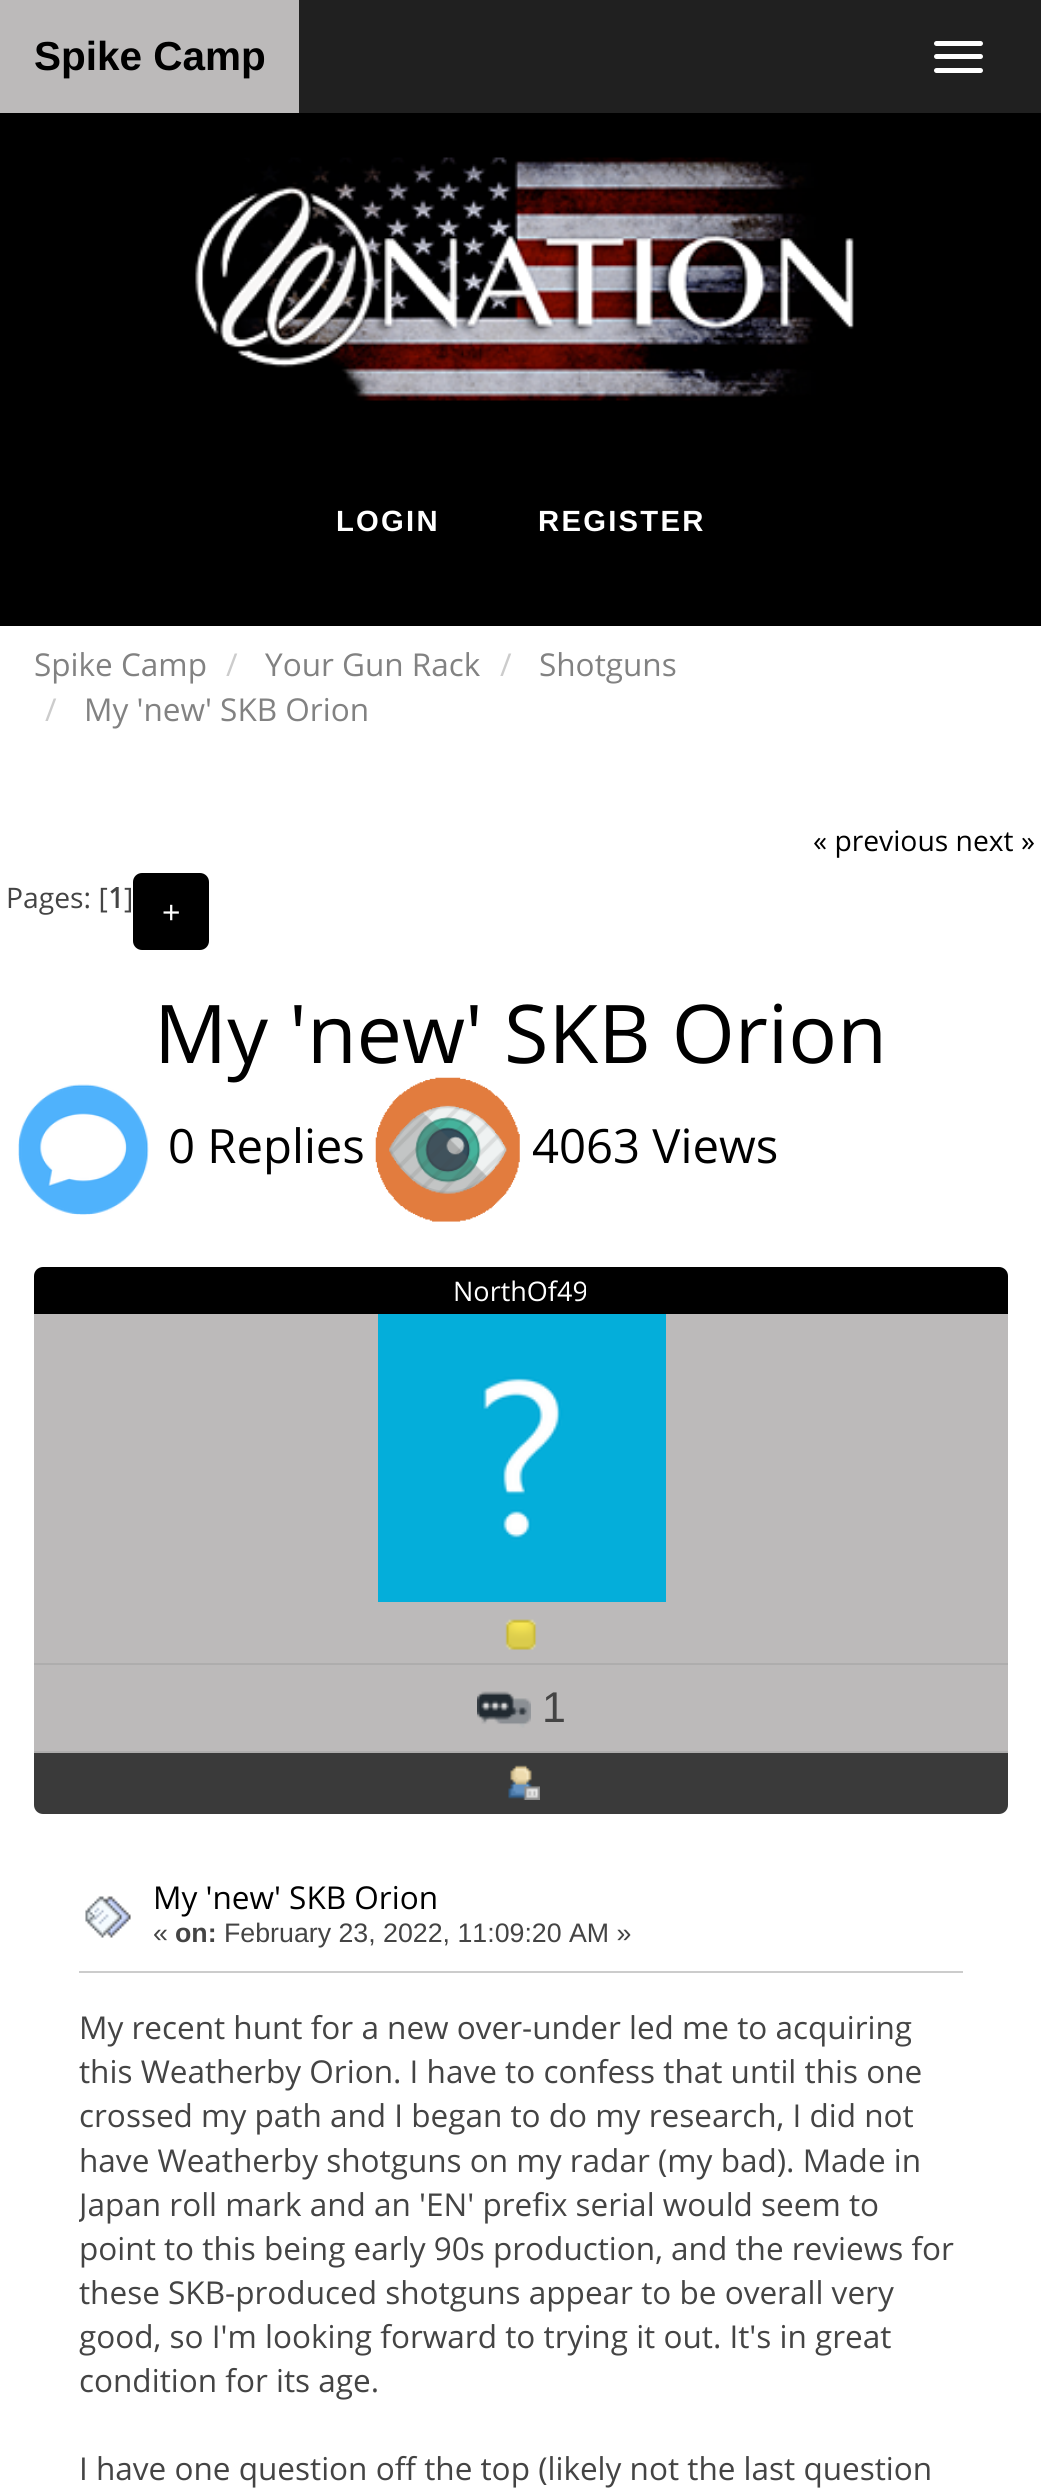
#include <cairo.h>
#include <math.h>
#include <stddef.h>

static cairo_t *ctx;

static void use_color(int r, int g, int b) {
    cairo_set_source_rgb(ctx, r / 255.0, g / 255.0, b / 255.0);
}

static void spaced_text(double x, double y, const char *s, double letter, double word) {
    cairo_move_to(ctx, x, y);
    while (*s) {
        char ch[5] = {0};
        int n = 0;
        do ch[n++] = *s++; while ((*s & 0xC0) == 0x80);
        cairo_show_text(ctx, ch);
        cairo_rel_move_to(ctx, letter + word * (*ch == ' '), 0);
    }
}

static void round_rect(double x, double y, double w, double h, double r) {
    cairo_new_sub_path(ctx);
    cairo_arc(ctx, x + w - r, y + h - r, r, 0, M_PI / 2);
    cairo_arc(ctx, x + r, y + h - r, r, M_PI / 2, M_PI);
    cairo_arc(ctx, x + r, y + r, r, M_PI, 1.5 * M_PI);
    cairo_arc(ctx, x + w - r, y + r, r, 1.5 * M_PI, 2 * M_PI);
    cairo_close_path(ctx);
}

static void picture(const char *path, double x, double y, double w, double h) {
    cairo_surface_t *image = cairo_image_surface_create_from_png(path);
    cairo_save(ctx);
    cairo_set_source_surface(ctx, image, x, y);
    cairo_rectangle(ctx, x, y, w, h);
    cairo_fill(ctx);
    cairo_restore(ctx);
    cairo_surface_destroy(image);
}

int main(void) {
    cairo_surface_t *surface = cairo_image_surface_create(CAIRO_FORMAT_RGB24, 1041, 2491);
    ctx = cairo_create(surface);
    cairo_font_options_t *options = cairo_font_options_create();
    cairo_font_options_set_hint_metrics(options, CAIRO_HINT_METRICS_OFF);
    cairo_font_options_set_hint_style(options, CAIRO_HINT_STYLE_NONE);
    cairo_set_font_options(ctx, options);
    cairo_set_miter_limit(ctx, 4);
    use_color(255, 255, 255);
    cairo_paint(ctx);
    use_color(32, 32, 32);
    cairo_rectangle(ctx, 299, 0, 742, 113);
    cairo_fill(ctx);
    use_color(188, 186, 186);
    cairo_rectangle(ctx, 0, 0, 299, 113);
    cairo_fill(ctx);
    cairo_select_font_face(ctx, "Liberation Sans", CAIRO_FONT_SLANT_NORMAL, CAIRO_FONT_WEIGHT_BOLD);
    cairo_set_font_size(ctx, 40.5);
    use_color(0, 0, 0);
    cairo_move_to(ctx, 34, 70);
    cairo_show_text(ctx, "Spike Camp");
    use_color(255, 255, 255);
    round_rect(934, 41, 49, 5, 2.5);
    cairo_fill(ctx);
    round_rect(934, 54, 49, 5, 2.5);
    cairo_fill(ctx);
    round_rect(934, 68, 49, 5, 2.5);
    cairo_fill(ctx);
    use_color(0, 0, 0);
    cairo_rectangle(ctx, 0, 113, 1041, 513);
    cairo_fill(ctx);
    picture("img1.png", 195, 157, 659, 244);
    cairo_set_font_size(ctx, 29.25);
    use_color(255, 255, 255);
    spaced_text(336, 531, "LOGIN", 2.25, 0);
    spaced_text(538, 531, "REGISTER", 2.25, 0);
    cairo_select_font_face(ctx, "Open Sans", CAIRO_FONT_SLANT_NORMAL, CAIRO_FONT_WEIGHT_NORMAL);
    cairo_set_font_size(ctx, 31.5);
    use_color(130, 130, 130);
    cairo_move_to(ctx, 34, 676);
    cairo_show_text(ctx, "Spike Camp");
    use_color(204, 204, 204);
    cairo_move_to(ctx, 226, 676);
    cairo_show_text(ctx, "/");
    use_color(130, 130, 130);
    cairo_move_to(ctx, 265, 676);
    cairo_show_text(ctx, "Your Gun Rack");
    use_color(204, 204, 204);
    cairo_move_to(ctx, 500, 676);
    cairo_show_text(ctx, "/");
    use_color(130, 130, 130);
    cairo_move_to(ctx, 539, 676);
    cairo_show_text(ctx, "Shotguns");
    use_color(204, 204, 204);
    cairo_move_to(ctx, 45, 721);
    cairo_show_text(ctx, "/");
    use_color(130, 130, 130);
    cairo_move_to(ctx, 84, 721);
    cairo_show_text(ctx, "My 'new' SKB Orion");
    cairo_set_font_size(ctx, 28.25);
    use_color(0, 0, 0);
    cairo_move_to(ctx, 813, 851);
    cairo_show_text(ctx, "« previous next »");
    use_color(68, 68, 68);
    cairo_move_to(ctx, 6, 908);
    cairo_show_text(ctx, "Pages: [");
    cairo_select_font_face(ctx, "Open Sans", CAIRO_FONT_SLANT_NORMAL, CAIRO_FONT_WEIGHT_BOLD);
    cairo_move_to(ctx, 108, 908);
    cairo_show_text(ctx, "1");
    cairo_select_font_face(ctx, "Open Sans", CAIRO_FONT_SLANT_NORMAL, CAIRO_FONT_WEIGHT_NORMAL);
    cairo_move_to(ctx, 124, 908);
    cairo_show_text(ctx, "]");
    use_color(0, 0, 0);
    round_rect(134, 874, 74, 75, 8);
    cairo_fill_preserve(ctx);
    cairo_stroke(ctx);
    cairo_select_font_face(ctx, "Liberation Sans", CAIRO_FONT_SLANT_NORMAL, CAIRO_FONT_WEIGHT_NORMAL);
    cairo_set_font_size(ctx, 31.5);
    use_color(255, 255, 255);
    cairo_move_to(ctx, 162, 923);
    cairo_show_text(ctx, "+");
    picture("img3.png", 375, 1077, 145, 145);
    cairo_select_font_face(ctx, "Open Sans", CAIRO_FONT_SLANT_NORMAL, CAIRO_FONT_WEIGHT_NORMAL);
    cairo_set_font_size(ctx, 81);
    use_color(0, 0, 0);
    cairo_move_to(ctx, 154, 1063);
    cairo_show_text(ctx, "My 'new' SKB Orion");
    picture("img2.png", 18, 1084, 131, 131);
    cairo_set_font_size(ctx, 47.25);
    cairo_move_to(ctx, 168, 1163);
    cairo_show_text(ctx, "0 Replies");
    cairo_move_to(ctx, 532, 1163);
    cairo_show_text(ctx, "4063 Views");
    cairo_new_path(ctx);
    cairo_move_to(ctx, 43, 1267);
    cairo_line_to(ctx, 999, 1267);
    cairo_curve_to(ctx, 1004, 1267, 1008, 1271, 1008, 1276);
    cairo_line_to(ctx, 1008, 1314);
    cairo_line_to(ctx, 34, 1314);
    cairo_line_to(ctx, 34, 1276);
    cairo_curve_to(ctx, 34, 1271, 38, 1267, 43, 1267);
    cairo_close_path(ctx);
    cairo_fill(ctx);
    cairo_set_font_size(ctx, 27);
    use_color(255, 255, 255);
    cairo_move_to(ctx, 453, 1301);
    cairo_show_text(ctx, "NorthOf49");
    use_color(188, 186, 186);
    cairo_rectangle(ctx, 34, 1314, 974, 349);
    cairo_fill(ctx);
    picture("img4.png", 505, 1619, 32, 31);
    picture("img5.png", 378, 1314, 288, 288);
    cairo_rectangle(ctx, 34, 1665, 974, 86);
    cairo_fill(ctx);
    use_color(174, 173, 173);
    cairo_rectangle(ctx, 34, 1663, 974, 2);
    cairo_fill(ctx);
    cairo_rectangle(ctx, 34, 1751, 974, 2);
    cairo_fill(ctx);
    picture("img6.png", 477, 1691, 54, 37);
    cairo_select_font_face(ctx, "Liberation Sans", CAIRO_FONT_SLANT_NORMAL, CAIRO_FONT_WEIGHT_NORMAL);
    cairo_set_font_size(ctx, 43);
    use_color(68, 68, 68);
    cairo_move_to(ctx, 542, 1722);
    cairo_show_text(ctx, "1");
    use_color(58, 58, 58);
    cairo_new_path(ctx);
    cairo_move_to(ctx, 34, 1753);
    cairo_line_to(ctx, 1008, 1753);
    cairo_line_to(ctx, 1008, 1805);
    cairo_curve_to(ctx, 1008, 1810, 1004, 1814, 999, 1814);
    cairo_line_to(ctx, 43, 1814);
    cairo_curve_to(ctx, 38, 1814, 34, 1810, 34, 1805);
    cairo_close_path(ctx);
    cairo_fill(ctx);
    picture("img7.png", 508, 1765, 32, 35);
    picture("img8.png", 85, 1896, 46, 42);
    cairo_select_font_face(ctx, "Open Sans", CAIRO_FONT_SLANT_NORMAL, CAIRO_FONT_WEIGHT_NORMAL);
    cairo_set_font_size(ctx, 31.5);
    use_color(0, 0, 0);
    cairo_move_to(ctx, 153, 1909);
    cairo_show_text(ctx, "My 'new' SKB Orion");
    cairo_select_font_face(ctx, "Liberation Sans", CAIRO_FONT_SLANT_NORMAL, CAIRO_FONT_WEIGHT_NORMAL);
    cairo_set_font_size(ctx, 26.75);
    use_color(68, 68, 68);
    cairo_move_to(ctx, 153, 1942);
    cairo_show_text(ctx, "«");
    cairo_select_font_face(ctx, "Liberation Sans", CAIRO_FONT_SLANT_NORMAL, CAIRO_FONT_WEIGHT_BOLD);
    cairo_move_to(ctx, 175, 1942);
    cairo_show_text(ctx, "on:");
    cairo_select_font_face(ctx, "Liberation Sans", CAIRO_FONT_SLANT_NORMAL, CAIRO_FONT_WEIGHT_NORMAL);
    cairo_move_to(ctx, 224, 1942);
    cairo_show_text(ctx, "February 23, 2022, 11:09:20 AM »");
    use_color(204, 204, 204);
    cairo_rectangle(ctx, 79, 1971, 884, 2);
    cairo_fill(ctx);
    cairo_select_font_face(ctx, "Open Sans", CAIRO_FONT_SLANT_NORMAL, CAIRO_FONT_WEIGHT_NORMAL);
    cairo_set_font_size(ctx, 31.5);
    use_color(68, 68, 68);
    cairo_move_to(ctx, 79, 2039);
    cairo_show_text(ctx, "My recent hunt for a new over-under led me to acquiring");
    cairo_move_to(ctx, 79, 2083);
    cairo_show_text(ctx, "this Weatherby Orion. I have to confess that until this one");
    cairo_move_to(ctx, 79, 2127);
    cairo_show_text(ctx, "crossed my path and I began to do my research, I did not");
    cairo_move_to(ctx, 79, 2172);
    cairo_show_text(ctx, "have Weatherby shotguns on my radar (my bad). Made in");
    cairo_save(ctx);
    cairo_rectangle(ctx, 79, 1969, 884, 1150);
    cairo_clip(ctx);
    cairo_move_to(ctx, 79, 2216);
    cairo_show_text(ctx, "Japan roll mark and an 'EN' prefix serial would seem to");
    cairo_restore(ctx);
    cairo_move_to(ctx, 79, 2260);
    cairo_show_text(ctx, "point to this being early 90s production, and the reviews for");
    cairo_move_to(ctx, 79, 2304);
    cairo_show_text(ctx, "these SKB-produced shotguns appear to be overall very");
    cairo_move_to(ctx, 79, 2348);
    cairo_show_text(ctx, "good, so I'm looking forward to trying it out. It's in great");
    cairo_move_to(ctx, 79, 2392);
    cairo_show_text(ctx, "condition for its age.");
    cairo_move_to(ctx, 79, 2480);
    cairo_show_text(ctx, "I have one question off the top (likely not the last question");
    cairo_surface_write_to_png(surface, "result.png");
    cairo_font_options_destroy(options);
    cairo_destroy(ctx);
    cairo_surface_destroy(surface);
    return 0;
}
